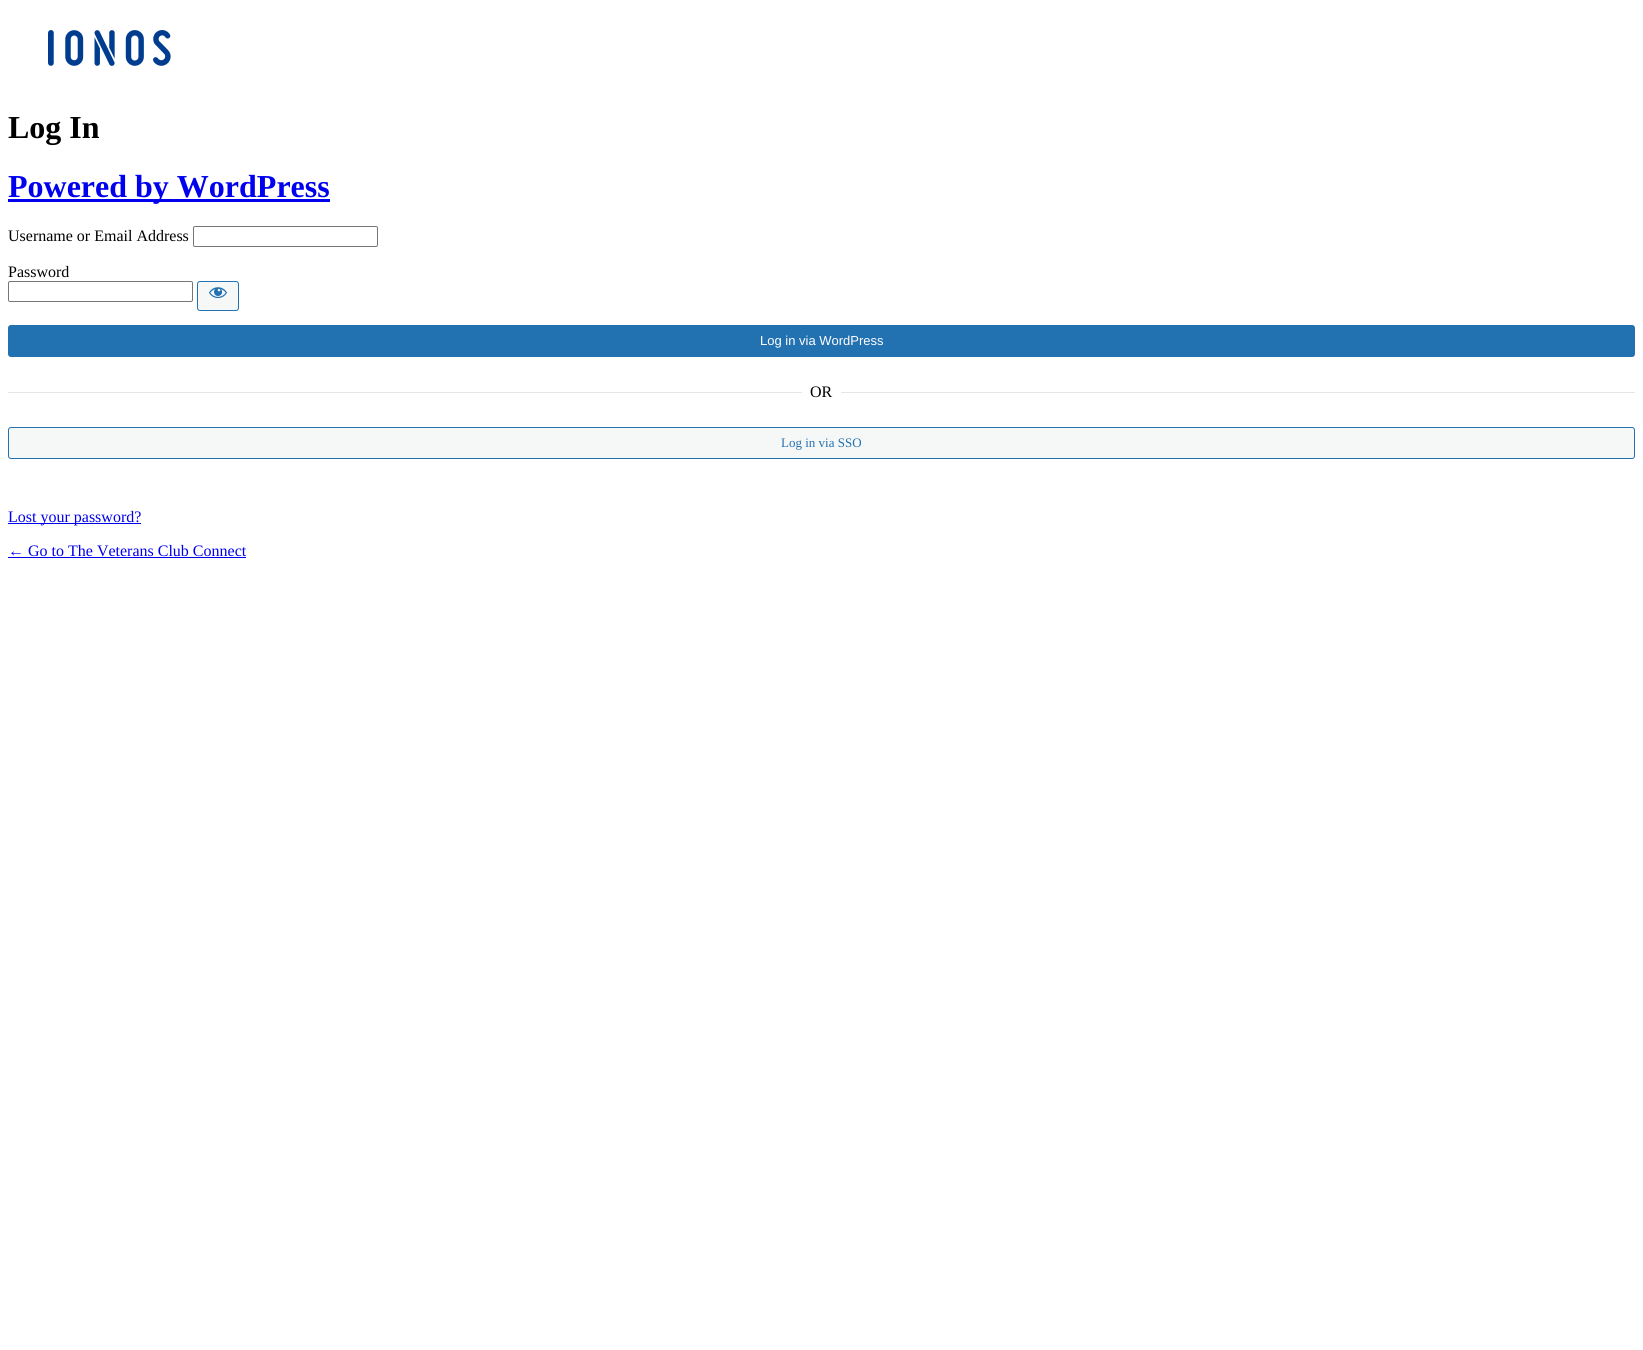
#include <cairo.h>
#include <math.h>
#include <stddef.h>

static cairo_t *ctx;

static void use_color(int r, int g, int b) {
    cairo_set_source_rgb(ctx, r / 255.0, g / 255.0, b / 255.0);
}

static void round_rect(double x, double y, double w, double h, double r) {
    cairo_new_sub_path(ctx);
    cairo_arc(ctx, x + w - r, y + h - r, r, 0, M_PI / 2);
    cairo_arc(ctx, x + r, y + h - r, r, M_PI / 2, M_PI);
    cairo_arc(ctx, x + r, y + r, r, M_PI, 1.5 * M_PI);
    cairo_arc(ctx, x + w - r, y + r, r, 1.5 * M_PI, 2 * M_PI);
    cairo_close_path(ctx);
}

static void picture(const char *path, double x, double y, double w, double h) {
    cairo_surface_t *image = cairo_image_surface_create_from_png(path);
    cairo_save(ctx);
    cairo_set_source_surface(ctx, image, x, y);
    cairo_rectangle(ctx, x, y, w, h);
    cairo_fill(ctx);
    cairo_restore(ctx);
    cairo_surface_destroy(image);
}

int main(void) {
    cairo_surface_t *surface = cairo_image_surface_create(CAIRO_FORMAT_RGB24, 1643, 1350);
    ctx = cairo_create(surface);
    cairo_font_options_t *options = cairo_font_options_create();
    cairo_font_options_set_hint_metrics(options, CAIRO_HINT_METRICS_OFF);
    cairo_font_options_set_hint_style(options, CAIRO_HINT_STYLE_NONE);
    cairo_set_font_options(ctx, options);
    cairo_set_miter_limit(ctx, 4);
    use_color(255, 255, 255);
    cairo_paint(ctx);
    picture("img1.png", 48, 30, 123, 36);
    cairo_select_font_face(ctx, "Liberation Serif", CAIRO_FONT_SLANT_NORMAL, CAIRO_FONT_WEIGHT_BOLD);
    cairo_set_font_size(ctx, 32);
    use_color(0, 0, 0);
    cairo_move_to(ctx, 8, 138);
    cairo_show_text(ctx, "Log In");
    use_color(0, 0, 238);
    cairo_rectangle(ctx, 8, 199, 322, 3);
    cairo_fill(ctx);
    cairo_move_to(ctx, 8, 197);
    cairo_show_text(ctx, "Powered by WordPress");
    cairo_select_font_face(ctx, "Liberation Serif", CAIRO_FONT_SLANT_NORMAL, CAIRO_FONT_WEIGHT_NORMAL);
    cairo_set_font_size(ctx, 16);
    use_color(0, 0, 0);
    cairo_move_to(ctx, 8, 241);
    cairo_show_text(ctx, "Username or Email Address");
    round_rect(193.5, 226.5, 184, 20, 1.5);
    use_color(118, 118, 118);
    cairo_set_line_width(ctx, 1);
    cairo_stroke(ctx);
    use_color(0, 0, 0);
    cairo_move_to(ctx, 8, 277);
    cairo_show_text(ctx, "Password");
    round_rect(8.5, 281.5, 184, 20, 1.5);
    use_color(118, 118, 118);
    cairo_stroke(ctx);
    use_color(246, 247, 247);
    round_rect(197.5, 281.5, 41, 29, 2.5);
    cairo_fill_preserve(ctx);
    use_color(34, 113, 177);
    cairo_stroke(ctx);
    picture("img2.png", 209, 287, 18, 12);
    round_rect(8.5, 325.5, 1626, 31, 2.5);
    cairo_fill_preserve(ctx);
    cairo_stroke(ctx);
    cairo_select_font_face(ctx, "Liberation Sans", CAIRO_FONT_SLANT_NORMAL, CAIRO_FONT_WEIGHT_NORMAL);
    cairo_set_font_size(ctx, 13);
    use_color(255, 255, 255);
    cairo_move_to(ctx, 760, 345);
    cairo_show_text(ctx, "Log in via WordPress");
    use_color(229, 229, 229);
    cairo_rectangle(ctx, 8, 392, 1627, 1);
    cairo_fill(ctx);
    use_color(255, 255, 255);
    cairo_rectangle(ctx, 802, 392, 39, 1);
    cairo_fill(ctx);
    cairo_select_font_face(ctx, "Liberation Serif", CAIRO_FONT_SLANT_NORMAL, CAIRO_FONT_WEIGHT_NORMAL);
    cairo_set_font_size(ctx, 16);
    use_color(0, 0, 0);
    cairo_move_to(ctx, 810, 397);
    cairo_show_text(ctx, "OR");
    use_color(246, 247, 247);
    round_rect(8.5, 427.5, 1626, 31, 2.5);
    cairo_fill_preserve(ctx);
    use_color(34, 113, 177);
    cairo_stroke(ctx);
    cairo_set_font_size(ctx, 13);
    cairo_move_to(ctx, 781, 447);
    cairo_show_text(ctx, "Log in via SSO");
    use_color(0, 0, 238);
    cairo_rectangle(ctx, 8, 523, 133, 1);
    cairo_fill(ctx);
    cairo_set_font_size(ctx, 16);
    cairo_move_to(ctx, 8, 522);
    cairo_show_text(ctx, "Lost your password?");
    cairo_move_to(ctx, 8, 556);
    cairo_show_text(ctx, "← Go to The Veterans Club Connect");
    cairo_rectangle(ctx, 8, 557, 238, 1);
    cairo_fill(ctx);
    cairo_surface_write_to_png(surface, "result.png");
    cairo_font_options_destroy(options);
    cairo_destroy(ctx);
    cairo_surface_destroy(surface);
    return 0;
}
